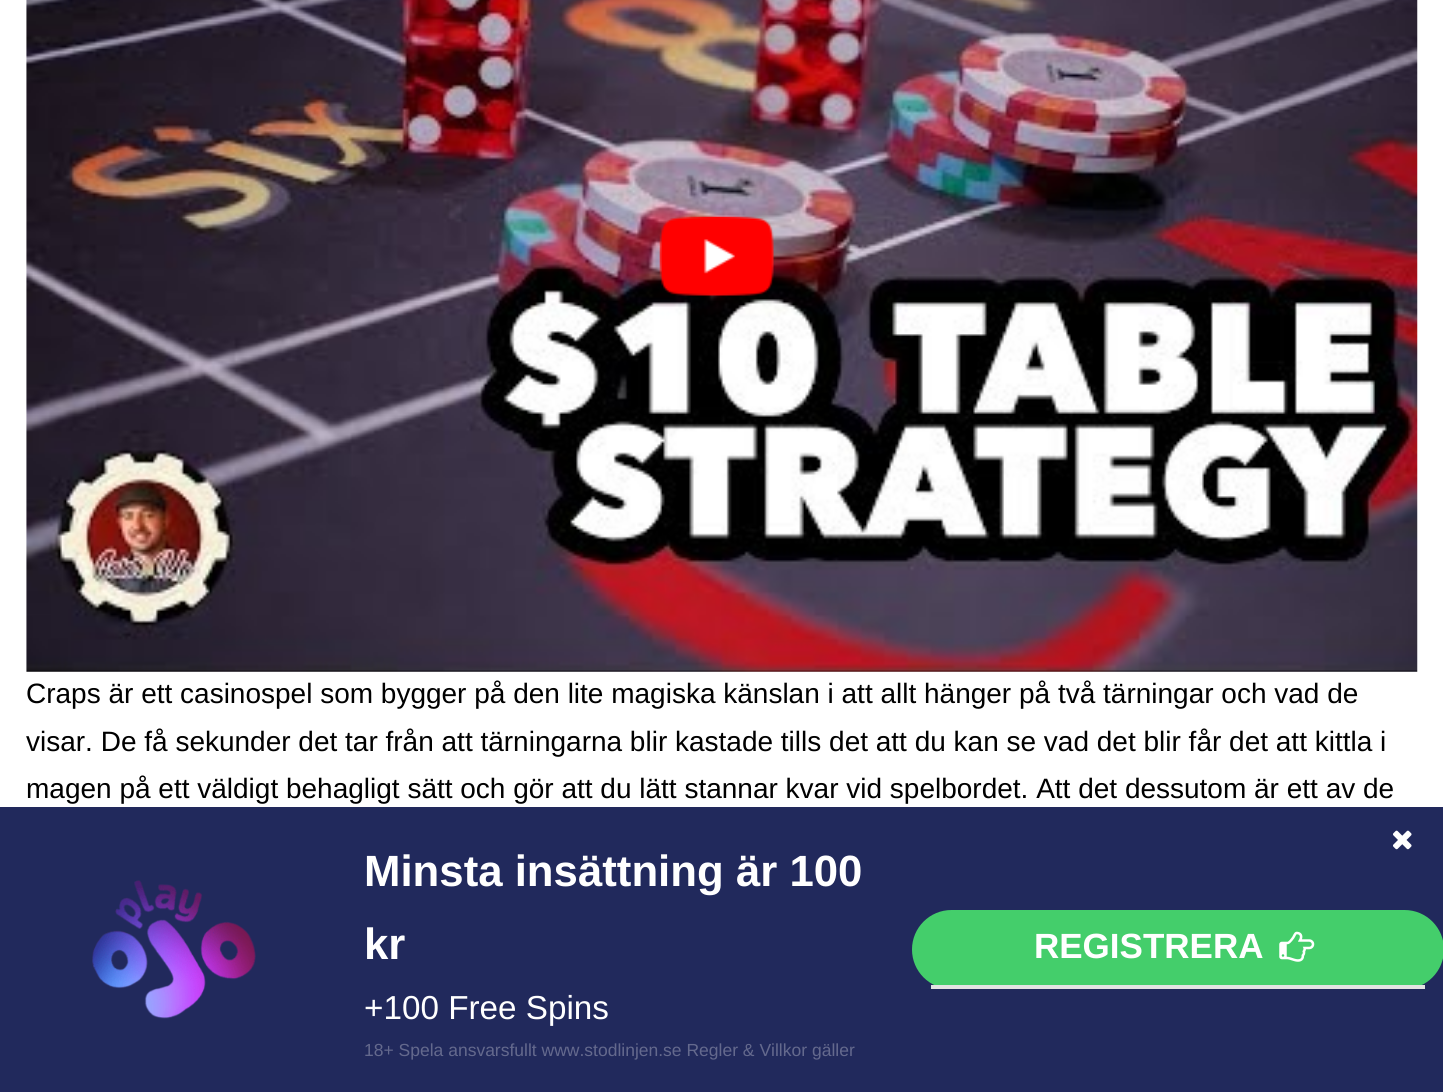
#include <cairo.h>
#include <math.h>
#include <stddef.h>

static cairo_t *ctx;

static void use_color(int r, int g, int b) {
    cairo_set_source_rgb(ctx, r / 255.0, g / 255.0, b / 255.0);
}

static void round_rect(double x, double y, double w, double h, double r) {
    cairo_new_sub_path(ctx);
    cairo_arc(ctx, x + w - r, y + h - r, r, 0, M_PI / 2);
    cairo_arc(ctx, x + r, y + h - r, r, M_PI / 2, M_PI);
    cairo_arc(ctx, x + r, y + r, r, M_PI, 1.5 * M_PI);
    cairo_arc(ctx, x + w - r, y + r, r, 1.5 * M_PI, 2 * M_PI);
    cairo_close_path(ctx);
}

static void picture(const char *path, double x, double y, double w, double h) {
    cairo_surface_t *image = cairo_image_surface_create_from_png(path);
    cairo_save(ctx);
    cairo_set_source_surface(ctx, image, x, y);
    cairo_rectangle(ctx, x, y, w, h);
    cairo_fill(ctx);
    cairo_restore(ctx);
    cairo_surface_destroy(image);
}

int main(void) {
    cairo_surface_t *surface = cairo_image_surface_create(CAIRO_FORMAT_RGB24, 1443, 1092);
    ctx = cairo_create(surface);
    cairo_font_options_t *options = cairo_font_options_create();
    cairo_font_options_set_hint_metrics(options, CAIRO_HINT_METRICS_OFF);
    cairo_font_options_set_hint_style(options, CAIRO_HINT_STYLE_NONE);
    cairo_set_font_options(ctx, options);
    cairo_set_miter_limit(ctx, 4);
    use_color(255, 255, 255);
    cairo_paint(ctx);
    picture("img1.png", 26, 0, 1392, 672);
    picture("img2.png", 659, 216, 115, 80);
    cairo_select_font_face(ctx, "Liberation Sans", CAIRO_FONT_SLANT_NORMAL, CAIRO_FONT_WEIGHT_NORMAL);
    cairo_set_font_size(ctx, 28);
    use_color(0, 0, 0);
    cairo_move_to(ctx, 26, 703);
    cairo_show_text(ctx, "Craps är ett casinospel som bygger på den lite magiska känslan i att allt hänger på två tärningar och vad de");
    cairo_move_to(ctx, 26, 751);
    cairo_show_text(ctx, "visar. De få sekunder det tar från att tärningarna blir kastade tills det att du kan se vad det blir får det att kittla i");
    cairo_move_to(ctx, 26, 798);
    cairo_show_text(ctx, "magen på ett väldigt behagligt sätt och gör att du lätt stannar kvar vid spelbordet. Att det dessutom är ett av de");
    use_color(33, 41, 92);
    cairo_rectangle(ctx, 0, 807, 1443, 285);
    cairo_fill(ctx);
    picture("img3.png", 1393, 830, 19, 20);
    picture("img4.png", 92, 880, 164, 139);
    cairo_select_font_face(ctx, "Liberation Sans", CAIRO_FONT_SLANT_NORMAL, CAIRO_FONT_WEIGHT_BOLD);
    cairo_set_font_size(ctx, 43.75);
    use_color(255, 255, 255);
    cairo_move_to(ctx, 364, 886);
    cairo_show_text(ctx, "Minsta insättning är 100");
    cairo_move_to(ctx, 364, 959);
    cairo_show_text(ctx, "kr");
    cairo_select_font_face(ctx, "Liberation Sans", CAIRO_FONT_SLANT_NORMAL, CAIRO_FONT_WEIGHT_NORMAL);
    cairo_set_font_size(ctx, 33.25);
    cairo_move_to(ctx, 364, 1019);
    cairo_show_text(ctx, "+100 Free Spins");
    cairo_set_font_size(ctx, 17.5);
    use_color(100, 105, 141);
    cairo_move_to(ctx, 364, 1056);
    cairo_show_text(ctx, "18+ Spela ansvarsfullt www.stodlinjen.se Regler & Villkor gäller");
    use_color(68, 206, 107);
    round_rect(912, 910, 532, 79, 39.5);
    cairo_fill(ctx);
    use_color(227, 227, 227);
    cairo_rectangle(ctx, 931, 985, 494, 4);
    cairo_fill(ctx);
    cairo_select_font_face(ctx, "Liberation Sans", CAIRO_FONT_SLANT_NORMAL, CAIRO_FONT_WEIGHT_BOLD);
    cairo_set_font_size(ctx, 35);
    use_color(255, 255, 255);
    cairo_move_to(ctx, 1034, 958);
    cairo_show_text(ctx, "REGISTRERA");
    picture("img5.png", 1279, 931, 36, 31);
    cairo_surface_write_to_png(surface, "result.png");
    cairo_font_options_destroy(options);
    cairo_destroy(ctx);
    cairo_surface_destroy(surface);
    return 0;
}
